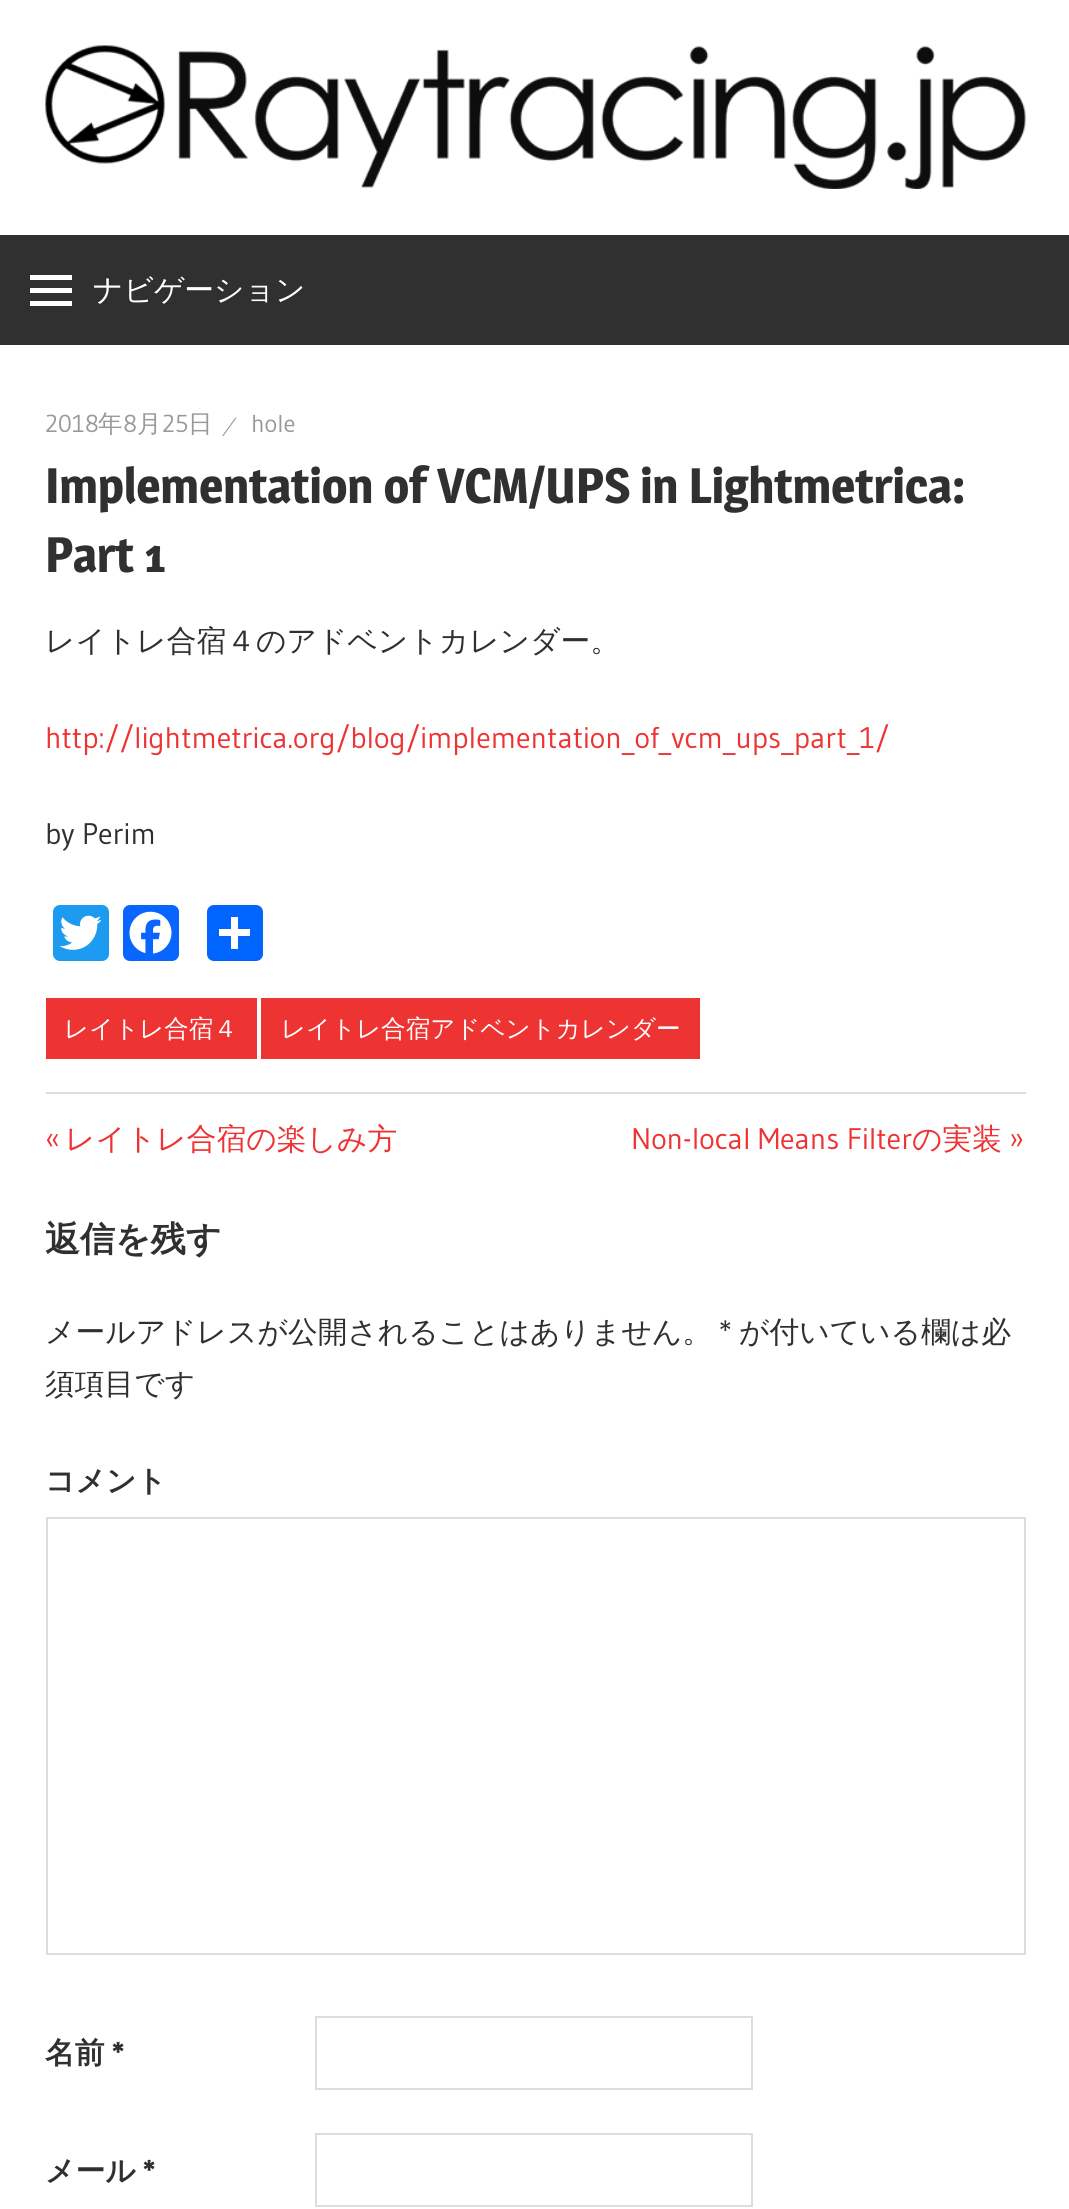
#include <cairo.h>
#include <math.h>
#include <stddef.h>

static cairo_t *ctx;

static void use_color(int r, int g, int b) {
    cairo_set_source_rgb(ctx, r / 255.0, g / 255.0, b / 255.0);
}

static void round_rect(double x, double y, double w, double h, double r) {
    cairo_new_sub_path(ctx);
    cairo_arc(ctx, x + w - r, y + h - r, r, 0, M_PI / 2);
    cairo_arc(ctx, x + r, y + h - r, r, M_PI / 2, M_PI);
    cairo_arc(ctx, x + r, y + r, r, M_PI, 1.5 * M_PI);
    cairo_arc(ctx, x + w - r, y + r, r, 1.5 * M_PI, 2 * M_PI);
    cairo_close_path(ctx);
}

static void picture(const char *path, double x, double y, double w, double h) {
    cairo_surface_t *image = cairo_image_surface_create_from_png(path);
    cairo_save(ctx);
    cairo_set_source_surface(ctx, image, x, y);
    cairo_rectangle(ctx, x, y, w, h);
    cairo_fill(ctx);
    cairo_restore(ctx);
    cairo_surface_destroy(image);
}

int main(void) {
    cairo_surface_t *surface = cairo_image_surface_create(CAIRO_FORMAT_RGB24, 1069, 2209);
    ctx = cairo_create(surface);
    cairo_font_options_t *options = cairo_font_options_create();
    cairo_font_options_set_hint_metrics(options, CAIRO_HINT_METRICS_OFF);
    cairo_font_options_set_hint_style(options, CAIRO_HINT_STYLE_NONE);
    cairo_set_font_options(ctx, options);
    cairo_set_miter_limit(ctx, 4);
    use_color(255, 255, 255);
    cairo_paint(ctx);
    picture("img1.png", 45, 45, 981, 144);
    use_color(48, 48, 48);
    cairo_rectangle(ctx, 0, 235, 1069, 110);
    cairo_fill(ctx);
    use_color(255, 255, 255);
    cairo_new_path(ctx);
    cairo_move_to(ctx, 30, 306);
    cairo_line_to(ctx, 30, 301);
    cairo_line_to(ctx, 72, 301);
    cairo_line_to(ctx, 72, 306);
    cairo_close_path(ctx);
    cairo_move_to(ctx, 30, 275);
    cairo_line_to(ctx, 72, 275);
    cairo_line_to(ctx, 72, 280);
    cairo_line_to(ctx, 30, 280);
    cairo_close_path(ctx);
    cairo_move_to(ctx, 30, 293);
    cairo_line_to(ctx, 30, 288);
    cairo_line_to(ctx, 72, 288);
    cairo_line_to(ctx, 72, 293);
    cairo_close_path(ctx);
    cairo_fill(ctx);
    cairo_select_font_face(ctx, "WenQuanYi Zen Hei Medium", CAIRO_FONT_SLANT_NORMAL, CAIRO_FONT_WEIGHT_NORMAL);
    cairo_set_font_size(ctx, 29.75);
    cairo_move_to(ctx, 93, 300);
    cairo_show_text(ctx, "ナビゲーション");
    cairo_select_font_face(ctx, "Gudea", CAIRO_FONT_SLANT_NORMAL, CAIRO_FONT_WEIGHT_NORMAL);
    cairo_set_font_size(ctx, 24.5);
    use_color(153, 153, 153);
    cairo_move_to(ctx, 45, 432);
    cairo_show_text(ctx, "2018");
    cairo_select_font_face(ctx, "WenQuanYi Zen Hei Medium", CAIRO_FONT_SLANT_NORMAL, CAIRO_FONT_WEIGHT_NORMAL);
    cairo_move_to(ctx, 98, 432);
    cairo_show_text(ctx, "年");
    cairo_select_font_face(ctx, "Gudea", CAIRO_FONT_SLANT_NORMAL, CAIRO_FONT_WEIGHT_NORMAL);
    cairo_move_to(ctx, 123, 432);
    cairo_show_text(ctx, "8");
    cairo_select_font_face(ctx, "WenQuanYi Zen Hei Medium", CAIRO_FONT_SLANT_NORMAL, CAIRO_FONT_WEIGHT_NORMAL);
    cairo_move_to(ctx, 137, 432);
    cairo_show_text(ctx, "月");
    cairo_select_font_face(ctx, "Gudea", CAIRO_FONT_SLANT_NORMAL, CAIRO_FONT_WEIGHT_NORMAL);
    cairo_move_to(ctx, 162, 432);
    cairo_show_text(ctx, "25");
    cairo_select_font_face(ctx, "WenQuanYi Zen Hei Medium", CAIRO_FONT_SLANT_NORMAL, CAIRO_FONT_WEIGHT_NORMAL);
    cairo_move_to(ctx, 188, 432);
    cairo_show_text(ctx, "日");
    cairo_select_font_face(ctx, "Liberation Serif", CAIRO_FONT_SLANT_NORMAL, CAIRO_FONT_WEIGHT_NORMAL);
    cairo_set_font_size(ctx, 28);
    cairo_move_to(ctx, 227, 436);
    cairo_show_text(ctx, "⁄");
    cairo_select_font_face(ctx, "Gudea", CAIRO_FONT_SLANT_NORMAL, CAIRO_FONT_WEIGHT_NORMAL);
    cairo_set_font_size(ctx, 24.5);
    cairo_move_to(ctx, 251, 432);
    cairo_show_text(ctx, "hole");
    cairo_select_font_face(ctx, "Magra SemiBold", CAIRO_FONT_SLANT_NORMAL, CAIRO_FONT_WEIGHT_NORMAL);
    cairo_set_font_size(ctx, 49);
    use_color(48, 48, 48);
    cairo_move_to(ctx, 45, 503);
    cairo_show_text(ctx, "Implementation of VCM/UPS in Lightmetrica:");
    cairo_move_to(ctx, 45, 572);
    cairo_show_text(ctx, "Part 1");
    cairo_select_font_face(ctx, "WenQuanYi Zen Hei Medium", CAIRO_FONT_SLANT_NORMAL, CAIRO_FONT_WEIGHT_NORMAL);
    cairo_set_font_size(ctx, 29.75);
    cairo_move_to(ctx, 45, 651);
    cairo_show_text(ctx, "レイトレ合宿４のアドベントカレンダー。");
    cairo_select_font_face(ctx, "Gudea", CAIRO_FONT_SLANT_NORMAL, CAIRO_FONT_WEIGHT_NORMAL);
    use_color(238, 51, 51);
    cairo_move_to(ctx, 45, 748);
    cairo_show_text(ctx, "http://lightmetrica.org/blog/implementation_of_vcm_ups_part_1/");
    use_color(48, 48, 48);
    cairo_move_to(ctx, 45, 844);
    cairo_show_text(ctx, "by Perim");
    use_color(29, 155, 240);
    round_rect(53, 905, 56, 56, 7);
    cairo_fill(ctx);
    picture("img2.png", 59, 915, 43, 35);
    use_color(8, 102, 255);
    round_rect(123, 905, 56, 56, 7);
    cairo_fill(ctx);
    picture("img3.png", 129, 911, 43, 43);
    use_color(1, 102, 255);
    round_rect(207, 905, 56, 56, 7);
    cairo_fill(ctx);
    use_color(255, 255, 255);
    cairo_rectangle(ctx, 231, 917, 7, 32);
    cairo_fill(ctx);
    cairo_rectangle(ctx, 219, 929, 31, 7);
    cairo_fill(ctx);
    use_color(238, 51, 51);
    cairo_rectangle(ctx, 46, 998, 211, 61);
    cairo_fill(ctx);
    cairo_select_font_face(ctx, "WenQuanYi Zen Hei Medium", CAIRO_FONT_SLANT_NORMAL, CAIRO_FONT_WEIGHT_NORMAL);
    cairo_set_font_size(ctx, 24.5);
    use_color(255, 255, 255);
    cairo_move_to(ctx, 64, 1037);
    cairo_show_text(ctx, "レイトレ合宿４");
    use_color(238, 51, 51);
    cairo_rectangle(ctx, 261, 998, 439, 61);
    cairo_fill(ctx);
    use_color(255, 255, 255);
    cairo_move_to(ctx, 281, 1037);
    cairo_show_text(ctx, "レイトレ合宿アドベントカレンダー");
    use_color(221, 221, 221);
    cairo_rectangle(ctx, 46, 1092, 980, 2);
    cairo_fill(ctx);
    cairo_select_font_face(ctx, "Gudea", CAIRO_FONT_SLANT_NORMAL, CAIRO_FONT_WEIGHT_NORMAL);
    cairo_set_font_size(ctx, 29.75);
    use_color(238, 51, 51);
    cairo_move_to(ctx, 45, 1149);
    cairo_show_text(ctx, "«");
    cairo_select_font_face(ctx, "WenQuanYi Zen Hei Medium", CAIRO_FONT_SLANT_NORMAL, CAIRO_FONT_WEIGHT_NORMAL);
    cairo_move_to(ctx, 65, 1149);
    cairo_show_text(ctx, "レイトレ合宿の楽しみ方");
    cairo_select_font_face(ctx, "Gudea", CAIRO_FONT_SLANT_NORMAL, CAIRO_FONT_WEIGHT_NORMAL);
    cairo_move_to(ctx, 631, 1149);
    cairo_show_text(ctx, "Non-local Means Filter");
    cairo_select_font_face(ctx, "WenQuanYi Zen Hei Medium", CAIRO_FONT_SLANT_NORMAL, CAIRO_FONT_WEIGHT_NORMAL);
    cairo_move_to(ctx, 912, 1149);
    cairo_show_text(ctx, "の実装");
    cairo_select_font_face(ctx, "Gudea", CAIRO_FONT_SLANT_NORMAL, CAIRO_FONT_WEIGHT_NORMAL);
    cairo_move_to(ctx, 1009, 1149);
    cairo_show_text(ctx, "»");
    cairo_select_font_face(ctx, "WenQuanYi Zen Hei", CAIRO_FONT_SLANT_NORMAL, CAIRO_FONT_WEIGHT_BOLD);
    cairo_set_font_size(ctx, 35);
    use_color(48, 48, 48);
    cairo_move_to(ctx, 45, 1251);
    cairo_show_text(ctx, "返信を残す");
    cairo_select_font_face(ctx, "WenQuanYi Zen Hei Medium", CAIRO_FONT_SLANT_NORMAL, CAIRO_FONT_WEIGHT_NORMAL);
    cairo_set_font_size(ctx, 29.75);
    cairo_move_to(ctx, 45, 1342);
    cairo_show_text(ctx, "メールアドレスが公開されることはありません。");
    cairo_select_font_face(ctx, "Gudea", CAIRO_FONT_SLANT_NORMAL, CAIRO_FONT_WEIGHT_NORMAL);
    cairo_move_to(ctx, 719, 1342);
    cairo_show_text(ctx, "*");
    cairo_select_font_face(ctx, "WenQuanYi Zen Hei Medium", CAIRO_FONT_SLANT_NORMAL, CAIRO_FONT_WEIGHT_NORMAL);
    cairo_move_to(ctx, 739, 1342);
    cairo_show_text(ctx, "が付いている欄は必");
    cairo_move_to(ctx, 45, 1394);
    cairo_show_text(ctx, "須項目です");
    cairo_select_font_face(ctx, "WenQuanYi Zen Hei", CAIRO_FONT_SLANT_NORMAL, CAIRO_FONT_WEIGHT_BOLD);
    cairo_move_to(ctx, 45, 1491);
    cairo_show_text(ctx, "コメント");
    cairo_rectangle(ctx, 47, 1518, 978, 436);
    use_color(221, 221, 221);
    cairo_stroke(ctx);
    use_color(48, 48, 48);
    cairo_move_to(ctx, 45, 2063);
    cairo_show_text(ctx, "名前");
    cairo_select_font_face(ctx, "Gudea", CAIRO_FONT_SLANT_NORMAL, CAIRO_FONT_WEIGHT_BOLD);
    cairo_move_to(ctx, 112, 2063);
    cairo_show_text(ctx, "*");
    cairo_rectangle(ctx, 316, 2017, 436, 72);
    use_color(221, 221, 221);
    cairo_stroke(ctx);
    cairo_select_font_face(ctx, "WenQuanYi Zen Hei", CAIRO_FONT_SLANT_NORMAL, CAIRO_FONT_WEIGHT_BOLD);
    use_color(48, 48, 48);
    cairo_move_to(ctx, 45, 2181);
    cairo_show_text(ctx, "メール");
    cairo_select_font_face(ctx, "Gudea", CAIRO_FONT_SLANT_NORMAL, CAIRO_FONT_WEIGHT_BOLD);
    cairo_move_to(ctx, 143, 2181);
    cairo_show_text(ctx, "*");
    cairo_rectangle(ctx, 316, 2134, 436, 72);
    use_color(221, 221, 221);
    cairo_stroke(ctx);
    cairo_surface_write_to_png(surface, "result.png");
    cairo_font_options_destroy(options);
    cairo_destroy(ctx);
    cairo_surface_destroy(surface);
    return 0;
}
